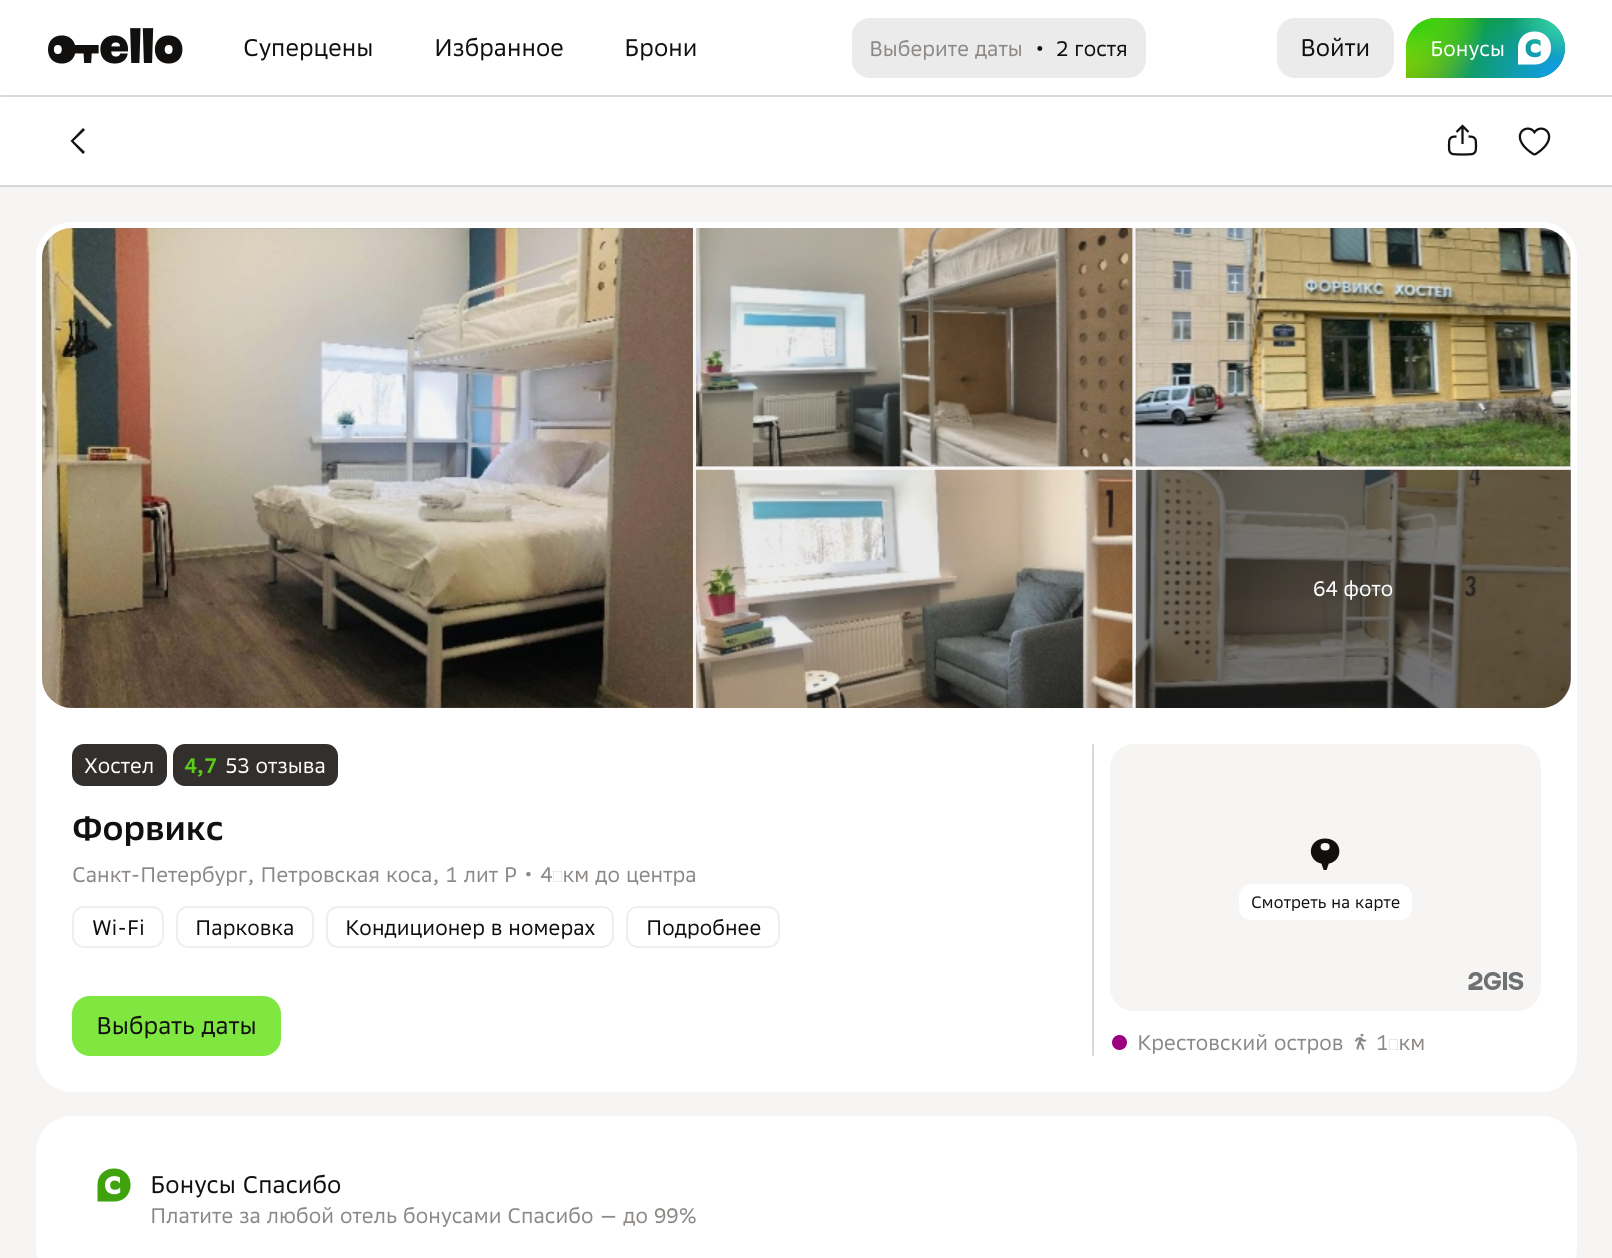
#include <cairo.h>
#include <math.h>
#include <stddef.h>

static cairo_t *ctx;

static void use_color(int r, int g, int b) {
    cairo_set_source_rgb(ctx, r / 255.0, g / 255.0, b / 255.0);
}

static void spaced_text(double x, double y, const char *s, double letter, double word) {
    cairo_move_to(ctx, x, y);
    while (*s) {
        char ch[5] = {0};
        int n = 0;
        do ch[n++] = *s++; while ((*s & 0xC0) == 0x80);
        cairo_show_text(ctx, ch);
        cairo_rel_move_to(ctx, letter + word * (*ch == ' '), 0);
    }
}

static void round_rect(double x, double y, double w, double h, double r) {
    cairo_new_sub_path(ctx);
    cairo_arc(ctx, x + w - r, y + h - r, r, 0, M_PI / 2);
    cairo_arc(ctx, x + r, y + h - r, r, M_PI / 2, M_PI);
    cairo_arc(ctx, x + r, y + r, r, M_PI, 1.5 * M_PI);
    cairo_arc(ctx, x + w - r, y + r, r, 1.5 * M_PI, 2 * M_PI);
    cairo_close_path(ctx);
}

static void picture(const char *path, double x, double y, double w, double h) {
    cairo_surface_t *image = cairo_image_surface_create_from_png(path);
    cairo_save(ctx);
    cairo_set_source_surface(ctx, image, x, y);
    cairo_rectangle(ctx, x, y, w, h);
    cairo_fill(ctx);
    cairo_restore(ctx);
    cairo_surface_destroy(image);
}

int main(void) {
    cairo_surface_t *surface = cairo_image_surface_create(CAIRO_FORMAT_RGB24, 1612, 1258);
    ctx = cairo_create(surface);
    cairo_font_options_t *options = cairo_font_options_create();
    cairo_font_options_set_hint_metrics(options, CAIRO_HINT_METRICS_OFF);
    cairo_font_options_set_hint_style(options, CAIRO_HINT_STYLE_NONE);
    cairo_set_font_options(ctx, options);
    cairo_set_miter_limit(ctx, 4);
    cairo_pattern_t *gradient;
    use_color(246, 245, 244);
    cairo_paint(ctx);
    use_color(255, 255, 255);
    cairo_rectangle(ctx, 0, 0, 1612, 186);
    cairo_fill(ctx);
    use_color(218, 218, 218);
    round_rect(0, 95, 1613, 2, 1);
    cairo_fill(ctx);
    picture("img1.png", 48, 28, 135, 36);
    cairo_select_font_face(ctx, "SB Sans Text", CAIRO_FONT_SLANT_NORMAL, CAIRO_FONT_WEIGHT_NORMAL);
    cairo_set_font_size(ctx, 24);
    use_color(17, 16, 15);
    spaced_text(243, 56, "Суперцены", -0.4, 0);
    spaced_text(434, 56, "Избранное", -0.4, 0);
    spaced_text(624, 56, "Брони", -0.4, 0);
    use_color(235, 235, 235);
    round_rect(852, 18, 294, 60, 18);
    cairo_fill(ctx);
    cairo_set_font_size(ctx, 21);
    use_color(139, 136, 134);
    spaced_text(869, 56, "Выберите даты", -0.4, 0);
    cairo_set_font_size(ctx, 24);
    use_color(17, 16, 15);
    spaced_text(1035, 57, "•", -0.4, 0);
    cairo_set_font_size(ctx, 21);
    spaced_text(1056, 56, "2 гостя", -0.4, 0);
    use_color(235, 235, 235);
    round_rect(1277, 18, 117, 60, 18);
    cairo_fill(ctx);
    cairo_set_font_size(ctx, 24);
    use_color(17, 16, 15);
    spaced_text(1300, 56, "Войти", -0.4, 0);
    use_color(12, 156, 12);
    cairo_new_path(ctx);
    cairo_move_to(ctx, 1436, 18);
    cairo_line_to(ctx, 1535, 18);
    cairo_curve_to(ctx, 1551.5, 18, 1565, 31.5, 1565, 48);
    cairo_curve_to(ctx, 1565, 64.5, 1551.5, 78, 1535, 78);
    cairo_line_to(ctx, 1406, 78);
    cairo_line_to(ctx, 1406, 48);
    cairo_curve_to(ctx, 1406, 31.5, 1419.5, 18, 1436, 18);
    cairo_close_path(ctx);
    cairo_fill(ctx);
    gradient = cairo_pattern_create_radial(0, 0, 0, 0, 0, 1);
    cairo_pattern_set_matrix(gradient, &(cairo_matrix_t){1.0 / 156, 0, 0, 1.0 / 110, -1.0 * 1565 / 156, -1.0 * 78 / 110});
    cairo_pattern_add_color_stop_rgba(gradient, 0, 0.071, 0.616, 0.98, 1);
    cairo_pattern_add_color_stop_rgba(gradient, 1, 0.071, 0.616, 0.98, 0);
    cairo_set_source(ctx, gradient);
    cairo_pattern_destroy(gradient);
    cairo_new_path(ctx);
    cairo_move_to(ctx, 1436, 18);
    cairo_line_to(ctx, 1535, 18);
    cairo_curve_to(ctx, 1551.5, 18, 1565, 31.5, 1565, 48);
    cairo_curve_to(ctx, 1565, 64.5, 1551.5, 78, 1535, 78);
    cairo_line_to(ctx, 1406, 78);
    cairo_line_to(ctx, 1406, 48);
    cairo_curve_to(ctx, 1406, 31.5, 1419.5, 18, 1436, 18);
    cairo_close_path(ctx);
    cairo_fill(ctx);
    gradient = cairo_pattern_create_radial(0, 0, 0, 0, 0, 1);
    cairo_pattern_set_matrix(gradient, &(cairo_matrix_t){1.0 / 61, 0, 0, 1.0 / 41, -1.0 * 1571 / 61, -1.0 * 18 / 41});
    cairo_pattern_add_color_stop_rgba(gradient, 0, 0.259, 0.89, 0.706, 1);
    cairo_pattern_add_color_stop_rgba(gradient, 1, 0.259, 0.89, 0.706, 0);
    cairo_set_source(ctx, gradient);
    cairo_pattern_destroy(gradient);
    cairo_new_path(ctx);
    cairo_move_to(ctx, 1436, 18);
    cairo_line_to(ctx, 1535, 18);
    cairo_curve_to(ctx, 1551.5, 18, 1565, 31.5, 1565, 48);
    cairo_curve_to(ctx, 1565, 64.5, 1551.5, 78, 1535, 78);
    cairo_line_to(ctx, 1406, 78);
    cairo_line_to(ctx, 1406, 48);
    cairo_curve_to(ctx, 1406, 31.5, 1419.5, 18, 1436, 18);
    cairo_close_path(ctx);
    cairo_fill(ctx);
    gradient = cairo_pattern_create_radial(0, 0, 0, 0, 0, 1);
    cairo_pattern_set_matrix(gradient, &(cairo_matrix_t){1.0 / 86, 0, 0, 1.0 / 106, -1.0 * 1399 / 86, -1.0 * 18 / 106});
    cairo_pattern_add_color_stop_rgba(gradient, 0, 0.98, 0.929, 0.02, 1);
    cairo_pattern_add_color_stop_rgba(gradient, 1, 0.98, 0.929, 0.02, 0);
    cairo_set_source(ctx, gradient);
    cairo_pattern_destroy(gradient);
    cairo_new_path(ctx);
    cairo_move_to(ctx, 1436, 18);
    cairo_line_to(ctx, 1535, 18);
    cairo_curve_to(ctx, 1551.5, 18, 1565, 31.5, 1565, 48);
    cairo_curve_to(ctx, 1565, 64.5, 1551.5, 78, 1535, 78);
    cairo_line_to(ctx, 1406, 78);
    cairo_line_to(ctx, 1406, 48);
    cairo_curve_to(ctx, 1406, 31.5, 1419.5, 18, 1436, 18);
    cairo_close_path(ctx);
    cairo_fill(ctx);
    gradient = cairo_pattern_create_radial(0, 0, 0, 0, 0, 1);
    cairo_pattern_set_matrix(gradient, &(cairo_matrix_t){1.0 / 85, 0, 0, 1.0 / 61, -1.0 * 1406 / 85, -1.0 * 18 / 61});
    cairo_pattern_add_color_stop_rgba(gradient, 0, 0.082, 0.816, 0.082, 1);
    cairo_pattern_add_color_stop_rgba(gradient, 1, 0.082, 0.816, 0.082, 0);
    cairo_set_source(ctx, gradient);
    cairo_pattern_destroy(gradient);
    cairo_new_path(ctx);
    cairo_move_to(ctx, 1436, 18);
    cairo_line_to(ctx, 1535, 18);
    cairo_curve_to(ctx, 1551.5, 18, 1565, 31.5, 1565, 48);
    cairo_curve_to(ctx, 1565, 64.5, 1551.5, 78, 1535, 78);
    cairo_line_to(ctx, 1406, 78);
    cairo_line_to(ctx, 1406, 48);
    cairo_curve_to(ctx, 1406, 31.5, 1419.5, 18, 1436, 18);
    cairo_close_path(ctx);
    cairo_fill(ctx);
    cairo_set_font_size(ctx, 21);
    use_color(255, 255, 255);
    spaced_text(1430, 56, "Бонусы", -0.4, 0);
    picture("img2.png", 1518, 31, 33, 34);
    cairo_set_source_rgba(ctx, 0.518, 0.514, 0.51, 0.3);
    round_rect(0, 185, 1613, 2, 1);
    cairo_fill(ctx);
    use_color(17, 16, 15);
    cairo_set_fill_rule(ctx, CAIRO_FILL_RULE_EVEN_ODD);
    cairo_new_path(ctx);
    cairo_move_to(ctx, 83, 154);
    cairo_line_to(ctx, 85, 152);
    cairo_line_to(ctx, 73.5, 141);
    cairo_line_to(ctx, 85, 130);
    cairo_line_to(ctx, 83, 128);
    cairo_line_to(ctx, 70.5, 141);
    cairo_close_path(ctx);
    cairo_fill(ctx);
    picture("img3.png", 1447, 124, 31, 32);
    picture("img4.png", 1518, 127, 33, 29);
    use_color(255, 255, 255);
    round_rect(36, 222, 1541, 870, 36);
    cairo_fill(ctx);
    use_color(246, 245, 244);
    round_rect(42, 228, 1529, 480, 30);
    cairo_fill(ctx);
    use_color(237, 235, 234);
    cairo_new_path(ctx);
    cairo_move_to(ctx, 72, 228);
    cairo_line_to(ctx, 693, 228);
    cairo_line_to(ctx, 693, 708);
    cairo_line_to(ctx, 72, 708);
    cairo_curve_to(ctx, 55.5, 708, 42, 694.5, 42, 678);
    cairo_line_to(ctx, 42, 258);
    cairo_curve_to(ctx, 42, 241.5, 55.5, 228, 72, 228);
    cairo_close_path(ctx);
    cairo_fill(ctx);
    picture("img5.png", 42, 228, 651, 480);
    cairo_set_source_rgba(ctx, 0.518, 0.514, 0.51, 0.16);
    cairo_new_path(ctx);
    cairo_move_to(ctx, 43, 251);
    cairo_line_to(ctx, 42, 258);
    cairo_line_to(ctx, 42, 678);
    cairo_line_to(ctx, 43, 685);
    cairo_close_path(ctx);
    cairo_move_to(ctx, 72, 228);
    cairo_line_to(ctx, 65, 229);
    cairo_line_to(ctx, 692, 229);
    cairo_line_to(ctx, 692, 707);
    cairo_line_to(ctx, 65, 707);
    cairo_line_to(ctx, 72, 708);
    cairo_line_to(ctx, 693, 708);
    cairo_line_to(ctx, 693, 228);
    cairo_close_path(ctx);
    cairo_fill(ctx);
    use_color(220, 218, 217);
    cairo_rectangle(ctx, 696, 228, 437, 239);
    cairo_fill(ctx);
    picture("img6.png", 696, 228, 437, 239);
    cairo_rectangle(ctx, 1132, 470, 1, 238);
    cairo_fill(ctx);
    picture("img7.png", 696, 469, 437, 239);
    use_color(237, 235, 234);
    cairo_new_path(ctx);
    cairo_move_to(ctx, 1136, 228);
    cairo_line_to(ctx, 1541, 228);
    cairo_curve_to(ctx, 1557.5, 228, 1571, 241.5, 1571, 258);
    cairo_line_to(ctx, 1571, 467);
    cairo_line_to(ctx, 1136, 467);
    cairo_close_path(ctx);
    cairo_fill(ctx);
    picture("img8.png", 1135, 228, 436, 239);
    cairo_set_source_rgba(ctx, 0.518, 0.514, 0.51, 0.16);
    cairo_set_fill_rule(ctx, CAIRO_FILL_RULE_WINDING);
    cairo_new_path(ctx);
    cairo_move_to(ctx, 1136, 228);
    cairo_line_to(ctx, 1136, 467);
    cairo_line_to(ctx, 1571, 467);
    cairo_line_to(ctx, 1571, 258);
    cairo_line_to(ctx, 1570, 251);
    cairo_line_to(ctx, 1570, 466);
    cairo_line_to(ctx, 1137, 466);
    cairo_line_to(ctx, 1137, 229);
    cairo_line_to(ctx, 1548, 229);
    cairo_line_to(ctx, 1541, 228);
    cairo_close_path(ctx);
    cairo_fill(ctx);
    use_color(237, 235, 234);
    cairo_new_path(ctx);
    cairo_move_to(ctx, 1136, 470);
    cairo_line_to(ctx, 1571, 470);
    cairo_line_to(ctx, 1571, 678);
    cairo_curve_to(ctx, 1571, 694.5, 1557.5, 708, 1541, 708);
    cairo_line_to(ctx, 1136, 708);
    cairo_close_path(ctx);
    cairo_fill(ctx);
    picture("img9.png", 1135, 469, 436, 239);
    cairo_set_source_rgba(ctx, 0, 0, 0, 0.5);
    cairo_new_path(ctx);
    cairo_move_to(ctx, 1136, 470);
    cairo_line_to(ctx, 1571, 470);
    cairo_line_to(ctx, 1571, 678);
    cairo_curve_to(ctx, 1571, 694.5, 1557.5, 708, 1541, 708);
    cairo_line_to(ctx, 1136, 708);
    cairo_close_path(ctx);
    cairo_fill(ctx);
    cairo_save(ctx);
    cairo_rectangle(ctx, 1136, 470, 435, 238);
    cairo_clip(ctx);
    cairo_set_source_rgba(ctx, 0.518, 0.514, 0.51, 0.16);
    cairo_new_path(ctx);
    cairo_move_to(ctx, 1136, 470);
    cairo_line_to(ctx, 1136, 708);
    cairo_line_to(ctx, 1541, 708);
    cairo_curve_to(ctx, 1555, 708, 1568, 698, 1570, 684);
    cairo_curve_to(ctx, 1573, 672, 1571, 649, 1571, 643);
    cairo_line_to(ctx, 1571, 470);
    cairo_close_path(ctx);
    cairo_fill(ctx);
    cairo_restore(ctx);
    use_color(255, 255, 255);
    spaced_text(1313, 596, "64 фото", -0.4, 0);
    use_color(50, 47, 44);
    round_rect(72, 744, 95, 42, 12);
    cairo_fill(ctx);
    use_color(255, 255, 255);
    spaced_text(84, 773, "Хостел", -0.4, 0);
    use_color(50, 47, 44);
    round_rect(173, 744, 165, 42, 12);
    cairo_fill(ctx);
    cairo_select_font_face(ctx, "SB Sans Text SemiBold", CAIRO_FONT_SLANT_NORMAL, CAIRO_FONT_WEIGHT_NORMAL);
    use_color(88, 204, 22);
    spaced_text(184, 773, "4,7", -0.4, 0);
    cairo_select_font_face(ctx, "SB Sans Text", CAIRO_FONT_SLANT_NORMAL, CAIRO_FONT_WEIGHT_NORMAL);
    use_color(255, 255, 255);
    spaced_text(225, 773, "53 отзыва", -0.4, 0);
    cairo_select_font_face(ctx, "SB Sans Text SemiBold", CAIRO_FONT_SLANT_NORMAL, CAIRO_FONT_WEIGHT_NORMAL);
    cairo_set_font_size(ctx, 33);
    use_color(17, 16, 15);
    spaced_text(72, 840, "Форвикс", -0.5, 0);
    cairo_select_font_face(ctx, "SB Sans Text", CAIRO_FONT_SLANT_NORMAL, CAIRO_FONT_WEIGHT_NORMAL);
    cairo_set_font_size(ctx, 21);
    use_color(139, 136, 134);
    spaced_text(72, 882, "Санкт-Петербург, Петровская коса, 1 лит Р", -0.4, 0);
    cairo_set_font_size(ctx, 22);
    spaced_text(524, 882, "•", -0.4, 0);
    cairo_set_font_size(ctx, 21);
    spaced_text(540, 882, "4 км до центра", -0.4, 0);
    round_rect(73, 907, 90, 40, 11);
    use_color(238, 238, 238);
    cairo_stroke(ctx);
    use_color(17, 16, 15);
    spaced_text(92, 935, "Wi-Fi", -0.4, 0);
    round_rect(177, 907, 136, 40, 11);
    use_color(238, 238, 238);
    cairo_stroke(ctx);
    use_color(17, 16, 15);
    spaced_text(195, 935, "Парковка", -0.4, 0);
    round_rect(327, 907, 286, 40, 11);
    use_color(238, 238, 238);
    cairo_stroke(ctx);
    use_color(17, 16, 15);
    spaced_text(345, 935, "Кондиционер в номерах", -0.4, 0);
    round_rect(627, 907, 152, 40, 11);
    use_color(238, 238, 238);
    cairo_stroke(ctx);
    use_color(17, 16, 15);
    spaced_text(646, 935, "Подробнее", -0.4, 0);
    use_color(127, 231, 64);
    round_rect(72, 996, 209, 60, 18);
    cairo_fill(ctx);
    cairo_set_font_size(ctx, 24);
    use_color(17, 16, 15);
    spaced_text(96, 1034, "Выбрать даты", -0.4, 0);
    use_color(218, 218, 218);
    round_rect(1092, 744, 2, 312, 1);
    cairo_fill(ctx);
    use_color(246, 245, 244);
    round_rect(1110, 744, 431, 267, 24);
    cairo_fill(ctx);
    picture("img10.png", 1310, 838, 30, 32);
    use_color(255, 255, 255);
    round_rect(1239, 884, 173, 36, 12);
    cairo_fill(ctx);
    cairo_set_font_size(ctx, 16.5);
    use_color(17, 16, 15);
    spaced_text(1251, 908, "Смотреть на карте", -0.25, 0);
    picture("img11.png", 1468, 972, 56, 18);
    use_color(155, 0, 127);
    cairo_arc(ctx, 1119.5, 1042.5, 7.5, 0, 2 * M_PI);
    cairo_fill(ctx);
    cairo_set_font_size(ctx, 21);
    use_color(139, 136, 134);
    spaced_text(1137, 1050, "Крестовский остров", -0.4, 0);
    picture("img12.png", 1354, 1034, 13, 16);
    spaced_text(1376, 1050, "1 км", -0.4, 0);
    use_color(255, 255, 255);
    round_rect(36, 1116, 1541, 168, 36);
    cairo_fill(ctx);
    picture("img13.png", 97, 1168, 34, 34);
    cairo_set_font_size(ctx, 24);
    use_color(17, 16, 15);
    spaced_text(150, 1193, "Бонусы Спасибо", -0.4, 0);
    cairo_set_font_size(ctx, 21);
    use_color(139, 136, 134);
    spaced_text(150, 1223, "Платите за любой отель бонусами Спасибо — до 99%", -0.4, 0);
    cairo_surface_write_to_png(surface, "result.png");
    cairo_font_options_destroy(options);
    cairo_destroy(ctx);
    cairo_surface_destroy(surface);
    return 0;
}
